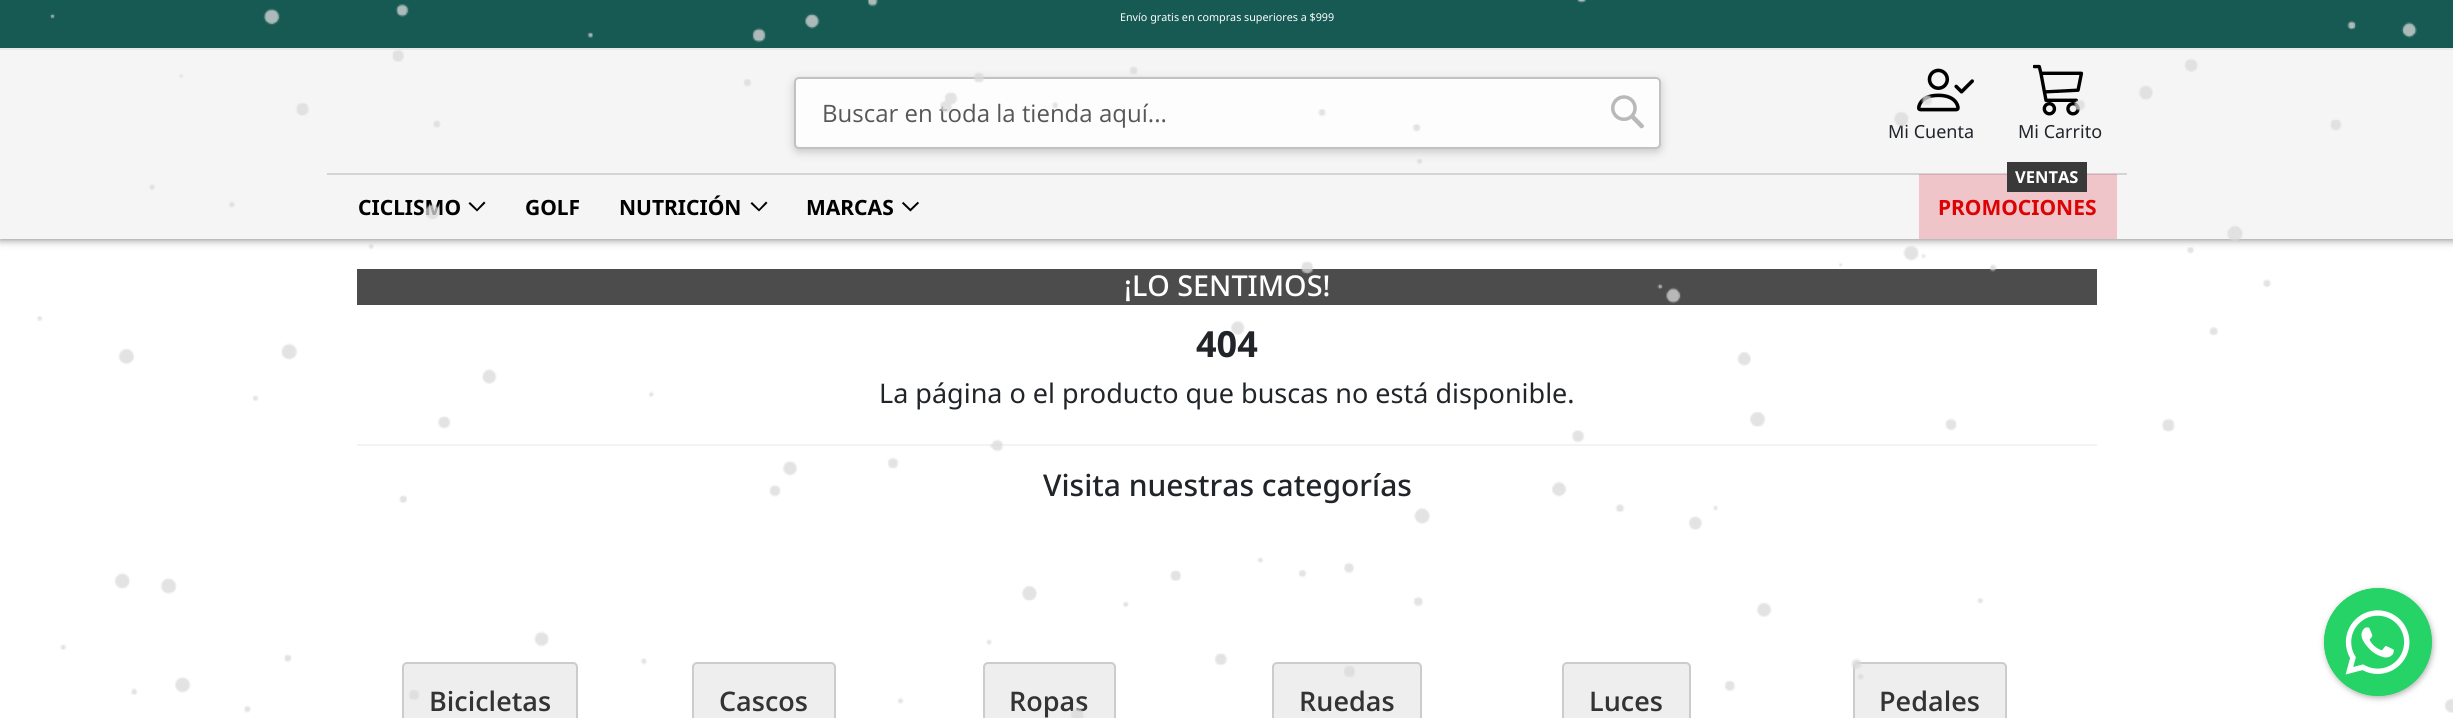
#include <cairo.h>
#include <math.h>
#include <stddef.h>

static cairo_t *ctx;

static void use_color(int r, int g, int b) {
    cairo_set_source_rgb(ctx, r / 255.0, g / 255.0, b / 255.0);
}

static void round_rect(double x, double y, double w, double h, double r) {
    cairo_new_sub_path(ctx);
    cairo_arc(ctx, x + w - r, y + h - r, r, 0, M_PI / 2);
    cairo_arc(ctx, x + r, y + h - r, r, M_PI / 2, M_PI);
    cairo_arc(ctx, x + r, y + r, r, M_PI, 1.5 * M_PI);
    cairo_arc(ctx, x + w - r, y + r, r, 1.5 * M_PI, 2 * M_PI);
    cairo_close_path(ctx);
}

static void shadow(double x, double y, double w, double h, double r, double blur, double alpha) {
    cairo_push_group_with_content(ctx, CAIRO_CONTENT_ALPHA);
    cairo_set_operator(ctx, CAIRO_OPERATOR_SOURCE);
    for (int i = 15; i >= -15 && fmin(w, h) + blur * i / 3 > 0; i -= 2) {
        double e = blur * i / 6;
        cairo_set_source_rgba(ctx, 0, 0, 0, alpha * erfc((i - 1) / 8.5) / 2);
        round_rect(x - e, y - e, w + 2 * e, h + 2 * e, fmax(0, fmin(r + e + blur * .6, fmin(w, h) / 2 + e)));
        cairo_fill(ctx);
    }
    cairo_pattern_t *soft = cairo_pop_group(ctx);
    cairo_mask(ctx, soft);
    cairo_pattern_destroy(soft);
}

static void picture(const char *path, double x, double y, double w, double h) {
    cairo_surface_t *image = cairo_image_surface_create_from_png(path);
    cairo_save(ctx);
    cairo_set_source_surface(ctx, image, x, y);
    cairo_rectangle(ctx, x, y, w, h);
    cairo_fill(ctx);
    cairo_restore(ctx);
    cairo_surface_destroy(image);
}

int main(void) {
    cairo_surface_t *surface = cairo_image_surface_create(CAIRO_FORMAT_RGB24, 2453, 718);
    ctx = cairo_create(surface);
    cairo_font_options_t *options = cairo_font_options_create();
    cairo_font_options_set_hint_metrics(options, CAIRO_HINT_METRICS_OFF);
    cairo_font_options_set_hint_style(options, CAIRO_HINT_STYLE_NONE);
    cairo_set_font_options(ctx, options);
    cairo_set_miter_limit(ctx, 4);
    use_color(255, 255, 255);
    cairo_paint(ctx);
    use_color(112, 112, 112);
    shadow(0, 0, 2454, 239, 0, 4.5, 1);
    use_color(245, 245, 245);
    cairo_rectangle(ctx, 0, 50, 2453, 189);
    cairo_fill(ctx);
    use_color(23, 89, 83);
    cairo_rectangle(ctx, 0, 0, 2453, 48);
    cairo_fill(ctx);
    use_color(232, 232, 232);
    cairo_rectangle(ctx, 0, 48, 2453, 2);
    cairo_fill(ctx);
    cairo_select_font_face(ctx, "Noto Sans", CAIRO_FONT_SLANT_NORMAL, CAIRO_FONT_WEIGHT_NORMAL);
    cairo_set_font_size(ctx, 10.75);
    use_color(255, 255, 255);
    cairo_move_to(ctx, 1120, 21);
    cairo_show_text(ctx, "Envío gratis en compras superiores a $999");
    use_color(212, 212, 212);
    cairo_rectangle(ctx, 327, 173, 1800, 2);
    cairo_fill(ctx);
    use_color(200, 200, 200);
    shadow(794, 80, 867, 72, 5, 4.5, 1);
    use_color(253, 253, 253);
    round_rect(795, 78, 865, 70, 4);
    cairo_fill_preserve(ctx);
    use_color(194, 194, 194);
    cairo_stroke(ctx);
    cairo_select_font_face(ctx, "Open Sans", CAIRO_FONT_SLANT_NORMAL, CAIRO_FONT_WEIGHT_NORMAL);
    cairo_set_font_size(ctx, 24);
    use_color(87, 87, 87);
    cairo_move_to(ctx, 822, 122);
    cairo_show_text(ctx, "Buscar en toda la tienda aquí...");
    picture("img2.png", 1611, 95, 33, 34);
    picture("img3.png", 1917, 68, 57, 44);
    cairo_select_font_face(ctx, "Noto Sans", CAIRO_FONT_SLANT_NORMAL, CAIRO_FONT_WEIGHT_NORMAL);
    cairo_set_font_size(ctx, 18);
    use_color(33, 37, 41);
    cairo_move_to(ctx, 1888, 138);
    cairo_show_text(ctx, "Mi Cuenta");
    picture("img4.png", 2033, 64, 51, 52);
    cairo_move_to(ctx, 2018, 138);
    cairo_show_text(ctx, "Mi Carrito");
    cairo_select_font_face(ctx, "Noto Sans", CAIRO_FONT_SLANT_NORMAL, CAIRO_FONT_WEIGHT_BOLD);
    cairo_set_font_size(ctx, 21);
    use_color(0, 0, 0);
    cairo_move_to(ctx, 358, 215);
    cairo_show_text(ctx, "CICLISMO");
    cairo_new_path(ctx);
    cairo_move_to(ctx, 477, 209);
    cairo_line_to(ctx, 470, 202);
    cairo_line_to(ctx, 468.5, 203.5);
    cairo_line_to(ctx, 477, 211.5);
    cairo_line_to(ctx, 485.5, 203);
    cairo_line_to(ctx, 484, 201.5);
    cairo_close_path(ctx);
    cairo_fill(ctx);
    cairo_move_to(ctx, 525, 215);
    cairo_show_text(ctx, "GOLF");
    cairo_move_to(ctx, 619, 215);
    cairo_show_text(ctx, "NUTRICIÓN");
    cairo_new_path(ctx);
    cairo_move_to(ctx, 759, 209);
    cairo_line_to(ctx, 752, 202);
    cairo_line_to(ctx, 750.5, 203.5);
    cairo_line_to(ctx, 759, 211.5);
    cairo_line_to(ctx, 767.5, 203);
    cairo_line_to(ctx, 766, 201.5);
    cairo_close_path(ctx);
    cairo_fill(ctx);
    cairo_move_to(ctx, 806, 215);
    cairo_show_text(ctx, "MARCAS");
    picture("img5.png", 902, 201, 17, 11);
    cairo_set_source_rgba(ctx, 0.863, 0.208, 0.271, 0.25);
    cairo_rectangle(ctx, 1919, 174, 198, 65);
    cairo_fill(ctx);
    use_color(57, 57, 57);
    cairo_rectangle(ctx, 2007, 162, 80, 30);
    cairo_fill(ctx);
    cairo_set_font_size(ctx, 16.5);
    use_color(255, 255, 255);
    cairo_move_to(ctx, 2015, 183);
    cairo_show_text(ctx, "VENTAS");
    cairo_set_font_size(ctx, 21);
    use_color(219, 3, 3);
    cairo_move_to(ctx, 1938, 215);
    cairo_show_text(ctx, "PROMOCIONES");
    use_color(76, 76, 76);
    cairo_rectangle(ctx, 357, 269, 1740, 36);
    cairo_fill(ctx);
    cairo_select_font_face(ctx, "Noto Sans Medium", CAIRO_FONT_SLANT_NORMAL, CAIRO_FONT_WEIGHT_NORMAL);
    cairo_set_font_size(ctx, 28.75);
    use_color(255, 255, 255);
    cairo_move_to(ctx, 1124, 296);
    cairo_show_text(ctx, "¡LO SENTIMOS!");
    cairo_select_font_face(ctx, "Noto Sans", CAIRO_FONT_SLANT_NORMAL, CAIRO_FONT_WEIGHT_BOLD);
    cairo_set_font_size(ctx, 36);
    use_color(33, 37, 41);
    cairo_move_to(ctx, 1196, 357);
    cairo_show_text(ctx, "404");
    cairo_select_font_face(ctx, "Noto Sans", CAIRO_FONT_SLANT_NORMAL, CAIRO_FONT_WEIGHT_NORMAL);
    cairo_set_font_size(ctx, 27);
    cairo_move_to(ctx, 879, 403);
    cairo_show_text(ctx, "La página o el producto que buscas no está disponible.");
    use_color(243, 243, 243);
    cairo_rectangle(ctx, 357, 444, 1740, 2);
    cairo_fill(ctx);
    cairo_select_font_face(ctx, "Noto Sans Medium", CAIRO_FONT_SLANT_NORMAL, CAIRO_FONT_WEIGHT_NORMAL);
    cairo_set_font_size(ctx, 30);
    use_color(33, 37, 41);
    cairo_move_to(ctx, 1043, 496);
    cairo_show_text(ctx, "Visita nuestras categorías");
    use_color(238, 238, 238);
    round_rect(403, 663, 174, 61, 4);
    cairo_fill_preserve(ctx);
    use_color(204, 204, 204);
    cairo_stroke(ctx);
    cairo_select_font_face(ctx, "Open Sans SemiBold", CAIRO_FONT_SLANT_NORMAL, CAIRO_FONT_WEIGHT_NORMAL);
    cairo_set_font_size(ctx, 27);
    use_color(51, 51, 51);
    cairo_move_to(ctx, 429, 711);
    cairo_show_text(ctx, "Bicicletas");
    use_color(238, 238, 238);
    round_rect(693, 663, 142, 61, 4);
    cairo_fill_preserve(ctx);
    use_color(204, 204, 204);
    cairo_stroke(ctx);
    use_color(51, 51, 51);
    cairo_move_to(ctx, 719, 711);
    cairo_show_text(ctx, "Cascos");
    use_color(238, 238, 238);
    round_rect(984, 663, 131, 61, 4);
    cairo_fill_preserve(ctx);
    use_color(204, 204, 204);
    cairo_stroke(ctx);
    use_color(51, 51, 51);
    cairo_move_to(ctx, 1009, 711);
    cairo_show_text(ctx, "Ropas");
    use_color(238, 238, 238);
    round_rect(1273, 663, 148, 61, 4);
    cairo_fill_preserve(ctx);
    use_color(204, 204, 204);
    cairo_stroke(ctx);
    use_color(51, 51, 51);
    cairo_move_to(ctx, 1299, 711);
    cairo_show_text(ctx, "Ruedas");
    use_color(238, 238, 238);
    round_rect(1563, 663, 127, 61, 4);
    cairo_fill_preserve(ctx);
    use_color(204, 204, 204);
    cairo_stroke(ctx);
    use_color(51, 51, 51);
    cairo_move_to(ctx, 1589, 711);
    cairo_show_text(ctx, "Luces");
    use_color(238, 238, 238);
    round_rect(1854, 663, 152, 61, 4);
    cairo_fill_preserve(ctx);
    use_color(204, 204, 204);
    cairo_stroke(ctx);
    use_color(51, 51, 51);
    cairo_move_to(ctx, 1879, 711);
    cairo_show_text(ctx, "Pedales");
    use_color(60, 60, 60);
    shadow(2325, 590, 108, 108, 54, 3, 0.4);
    use_color(37, 211, 102);
    cairo_arc(ctx, 2378, 642, 54, 0, 2 * M_PI);
    cairo_fill(ctx);
    picture("img6.png", 2324, 588, 108, 108);
    picture("img1.png", 37, 0, 2416, 718);
    cairo_surface_write_to_png(surface, "result.png");
    cairo_font_options_destroy(options);
    cairo_destroy(ctx);
    cairo_surface_destroy(surface);
    return 0;
}
